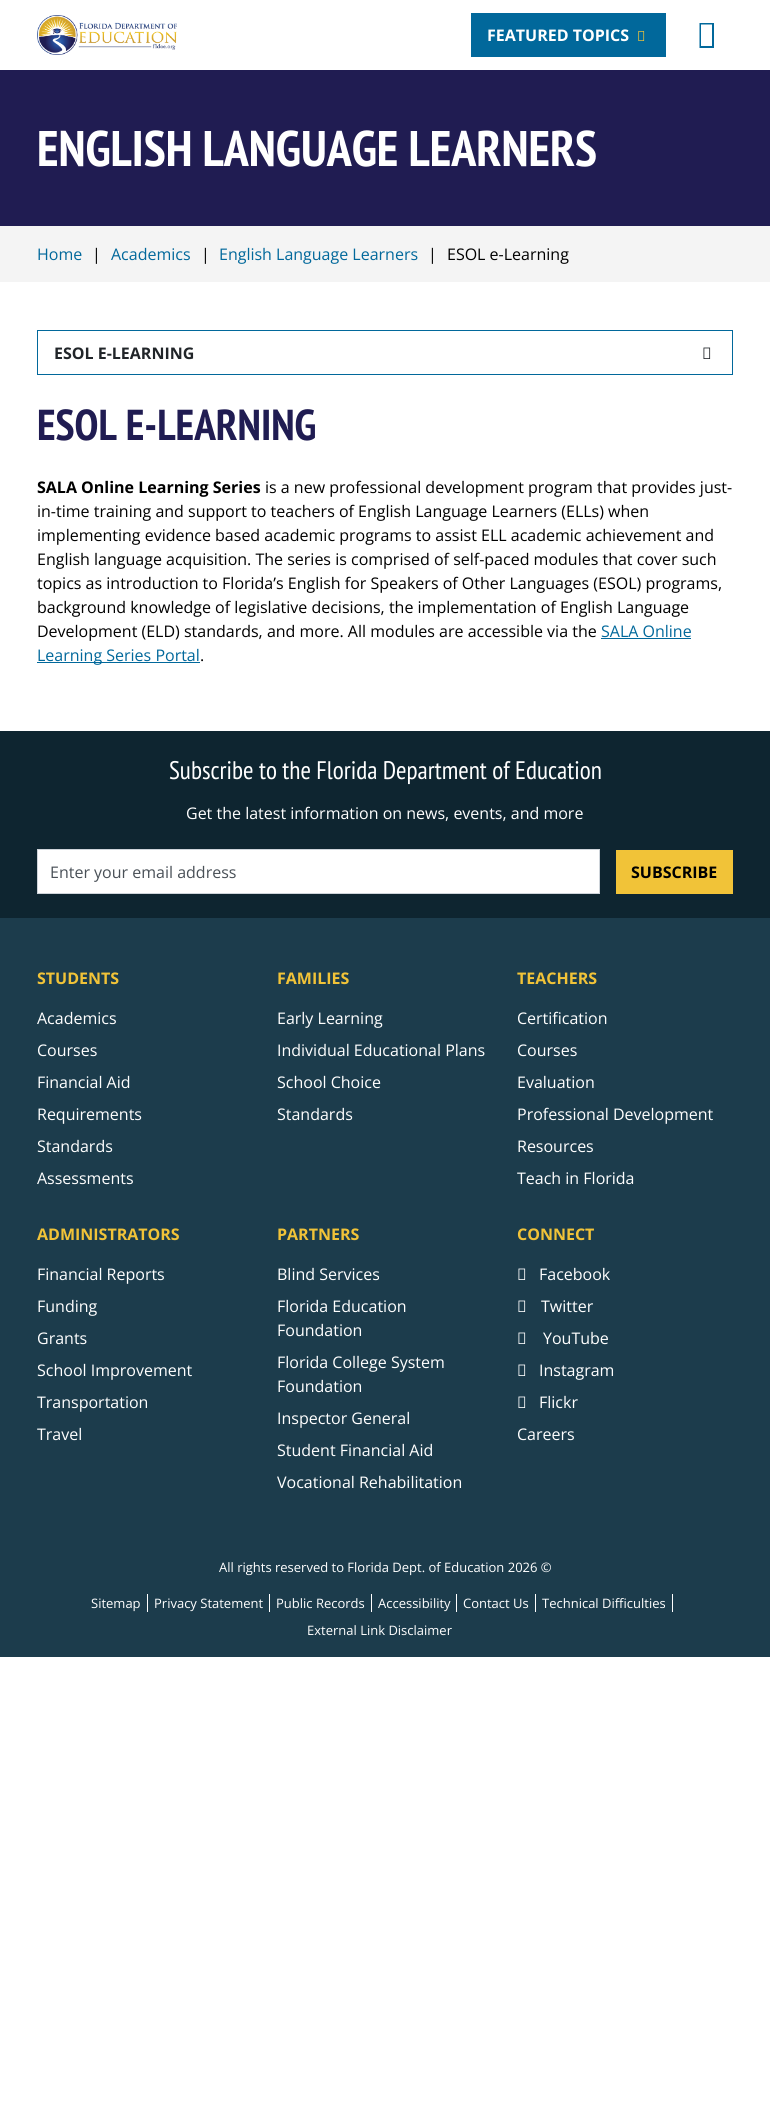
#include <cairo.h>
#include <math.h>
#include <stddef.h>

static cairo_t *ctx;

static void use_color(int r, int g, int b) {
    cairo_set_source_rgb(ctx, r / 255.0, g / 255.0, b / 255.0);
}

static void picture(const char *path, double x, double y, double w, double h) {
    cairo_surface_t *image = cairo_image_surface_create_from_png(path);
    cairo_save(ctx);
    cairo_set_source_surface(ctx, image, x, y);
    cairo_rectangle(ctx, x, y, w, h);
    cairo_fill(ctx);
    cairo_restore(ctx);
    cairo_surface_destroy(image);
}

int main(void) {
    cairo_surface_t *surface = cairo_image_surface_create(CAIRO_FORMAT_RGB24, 770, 2117);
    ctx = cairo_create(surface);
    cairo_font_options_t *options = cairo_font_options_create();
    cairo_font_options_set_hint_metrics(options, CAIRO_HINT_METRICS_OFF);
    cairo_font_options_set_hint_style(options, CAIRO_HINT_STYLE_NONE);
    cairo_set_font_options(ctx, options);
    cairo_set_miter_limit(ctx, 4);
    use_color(255, 255, 255);
    cairo_paint(ctx);
    picture("img1.png", 37, 15, 140, 40);
    use_color(1, 104, 155);
    cairo_rectangle(ctx, 471, 13, 195, 44);
    cairo_fill(ctx);
    cairo_select_font_face(ctx, "Open Sans", CAIRO_FONT_SLANT_NORMAL, CAIRO_FONT_WEIGHT_BOLD);
    cairo_set_font_size(ctx, 16);
    use_color(255, 255, 255);
    cairo_move_to(ctx, 487, 41);
    cairo_show_text(ctx, "FEATURED TOPICS");
    picture("img2.png", 638, 31, 7, 10);
    use_color(1, 104, 155);
    cairo_new_path(ctx);
    cairo_move_to(ctx, 699.5, 48);
    cairo_line_to(ctx, 699.5, 23);
    cairo_line_to(ctx, 714, 23);
    cairo_line_to(ctx, 714, 48);
    cairo_close_path(ctx);
    cairo_move_to(ctx, 701, 46);
    cairo_line_to(ctx, 712, 46);
    cairo_line_to(ctx, 712, 24.5);
    cairo_line_to(ctx, 701, 24.5);
    cairo_close_path(ctx);
    cairo_fill(ctx);
    use_color(32, 28, 82);
    cairo_rectangle(ctx, 0, 70, 770, 156);
    cairo_fill(ctx);
    cairo_select_font_face(ctx, "PT Sans Narrow", CAIRO_FONT_SLANT_NORMAL, CAIRO_FONT_WEIGHT_BOLD);
    cairo_set_font_size(ctx, 50);
    use_color(255, 255, 255);
    cairo_move_to(ctx, 37, 166);
    cairo_show_text(ctx, "ENGLISH LANGUAGE LEARNERS");
    use_color(244, 244, 244);
    cairo_rectangle(ctx, 0, 226, 770, 56);
    cairo_fill(ctx);
    cairo_select_font_face(ctx, "Open Sans", CAIRO_FONT_SLANT_NORMAL, CAIRO_FONT_WEIGHT_NORMAL);
    cairo_set_font_size(ctx, 16);
    use_color(1, 104, 155);
    cairo_move_to(ctx, 37, 260);
    cairo_show_text(ctx, "Home");
    use_color(0, 0, 0);
    cairo_move_to(ctx, 92, 260);
    cairo_show_text(ctx, "|");
    use_color(1, 104, 155);
    cairo_move_to(ctx, 111, 260);
    cairo_show_text(ctx, "Academics");
    use_color(0, 0, 0);
    cairo_move_to(ctx, 201, 260);
    cairo_show_text(ctx, "|");
    use_color(1, 104, 155);
    cairo_move_to(ctx, 219, 260);
    cairo_show_text(ctx, "English Language Learners");
    use_color(0, 0, 0);
    cairo_move_to(ctx, 428, 260);
    cairo_show_text(ctx, "|");
    cairo_move_to(ctx, 447, 260);
    cairo_show_text(ctx, "ESOL e-Learning");
    cairo_rectangle(ctx, 37.5, 330.5, 695, 44);
    use_color(1, 104, 155);
    cairo_set_line_width(ctx, 1);
    cairo_stroke(ctx);
    cairo_select_font_face(ctx, "Open Sans", CAIRO_FONT_SLANT_NORMAL, CAIRO_FONT_WEIGHT_BOLD);
    use_color(33, 37, 41);
    cairo_move_to(ctx, 54, 359);
    cairo_show_text(ctx, "ESOL E-LEARNING");
    picture("img3.png", 703, 347, 8, 12);
    cairo_select_font_face(ctx, "PT Sans Narrow", CAIRO_FONT_SLANT_NORMAL, CAIRO_FONT_WEIGHT_BOLD);
    cairo_set_font_size(ctx, 43.25);
    use_color(32, 28, 82);
    cairo_move_to(ctx, 37, 440);
    cairo_show_text(ctx, "ESOL E-LEARNING");
    cairo_select_font_face(ctx, "Open Sans", CAIRO_FONT_SLANT_NORMAL, CAIRO_FONT_WEIGHT_BOLD);
    cairo_set_font_size(ctx, 16);
    use_color(0, 0, 0);
    cairo_move_to(ctx, 37, 493);
    cairo_show_text(ctx, "SALA Online Learning Series");
    cairo_select_font_face(ctx, "Open Sans", CAIRO_FONT_SLANT_NORMAL, CAIRO_FONT_WEIGHT_NORMAL);
    cairo_move_to(ctx, 265, 493);
    cairo_show_text(ctx, "is a new professional development program that provides just-");
    cairo_move_to(ctx, 37, 517);
    cairo_show_text(ctx, "in-time training and support to teachers of English Language Learners (ELLs) when");
    cairo_move_to(ctx, 37, 541);
    cairo_show_text(ctx, "implementing evidence based academic programs to assist ELL academic achievement and");
    cairo_move_to(ctx, 37, 565);
    cairo_show_text(ctx, "English language acquisition. The series is comprised of self-paced modules that cover such");
    cairo_move_to(ctx, 37, 589);
    cairo_show_text(ctx, "topics as introduction to Florida’s English for Speakers of Other Languages (ESOL) programs,");
    cairo_move_to(ctx, 37, 613);
    cairo_show_text(ctx, "background knowledge of legislative decisions, the implementation of English Language");
    cairo_move_to(ctx, 37, 637);
    cairo_show_text(ctx, "Development (ELD) standards, and more. All modules are accessible via the");
    use_color(1, 104, 155);
    cairo_move_to(ctx, 601, 637);
    cairo_show_text(ctx, "SALA Online");
    cairo_rectangle(ctx, 601, 638, 90, 1);
    cairo_fill(ctx);
    cairo_rectangle(ctx, 37, 662, 163, 1);
    cairo_fill(ctx);
    cairo_move_to(ctx, 37, 661);
    cairo_show_text(ctx, "Learning Series Portal");
    use_color(0, 0, 0);
    cairo_move_to(ctx, 200, 661);
    cairo_show_text(ctx, ".");
    use_color(14, 37, 48);
    cairo_rectangle(ctx, 0, 731, 770, 187);
    cairo_fill(ctx);
    cairo_select_font_face(ctx, "PT Sans Narrow", CAIRO_FONT_SLANT_NORMAL, CAIRO_FONT_WEIGHT_NORMAL);
    cairo_set_font_size(ctx, 25.4);
    use_color(255, 255, 255);
    cairo_move_to(ctx, 169, 779);
    cairo_show_text(ctx, "Subscribe to the Florida Department of Education");
    cairo_select_font_face(ctx, "Open Sans", CAIRO_FONT_SLANT_NORMAL, CAIRO_FONT_WEIGHT_NORMAL);
    cairo_set_font_size(ctx, 16);
    cairo_move_to(ctx, 186, 819);
    cairo_show_text(ctx, "Get the latest information on news, events, and more");
    cairo_rectangle(ctx, 37.5, 849.5, 562, 44);
    cairo_fill_preserve(ctx);
    use_color(206, 212, 218);
    cairo_stroke(ctx);
    use_color(73, 80, 87);
    cairo_move_to(ctx, 50, 878);
    cairo_show_text(ctx, "Enter your email address");
    use_color(241, 195, 56);
    cairo_rectangle(ctx, 616, 850, 117, 44);
    cairo_fill(ctx);
    cairo_select_font_face(ctx, "Open Sans", CAIRO_FONT_SLANT_NORMAL, CAIRO_FONT_WEIGHT_BOLD);
    use_color(0, 0, 0);
    cairo_move_to(ctx, 631, 878);
    cairo_show_text(ctx, "SUBSCRIBE");
    use_color(28, 60, 76);
    cairo_rectangle(ctx, 0, 918, 770, 739);
    cairo_fill(ctx);
    use_color(241, 195, 56);
    cairo_move_to(ctx, 37, 984);
    cairo_show_text(ctx, "STUDENTS");
    cairo_select_font_face(ctx, "Open Sans", CAIRO_FONT_SLANT_NORMAL, CAIRO_FONT_WEIGHT_NORMAL);
    use_color(255, 255, 255);
    cairo_move_to(ctx, 37, 1024);
    cairo_show_text(ctx, "Academics");
    cairo_move_to(ctx, 37, 1056);
    cairo_show_text(ctx, "Courses");
    cairo_move_to(ctx, 37, 1088);
    cairo_show_text(ctx, "Financial Aid");
    cairo_move_to(ctx, 37, 1120);
    cairo_show_text(ctx, "Requirements");
    cairo_move_to(ctx, 37, 1152);
    cairo_show_text(ctx, "Standards");
    cairo_move_to(ctx, 37, 1184);
    cairo_show_text(ctx, "Assessments");
    cairo_select_font_face(ctx, "Open Sans", CAIRO_FONT_SLANT_NORMAL, CAIRO_FONT_WEIGHT_BOLD);
    use_color(241, 195, 56);
    cairo_move_to(ctx, 277, 984);
    cairo_show_text(ctx, "FAMILIES");
    cairo_select_font_face(ctx, "Open Sans", CAIRO_FONT_SLANT_NORMAL, CAIRO_FONT_WEIGHT_NORMAL);
    use_color(255, 255, 255);
    cairo_move_to(ctx, 277, 1024);
    cairo_show_text(ctx, "Early Learning");
    cairo_move_to(ctx, 277, 1056);
    cairo_show_text(ctx, "Individual Educational Plans");
    cairo_move_to(ctx, 277, 1088);
    cairo_show_text(ctx, "School Choice");
    cairo_move_to(ctx, 277, 1120);
    cairo_show_text(ctx, "Standards");
    cairo_select_font_face(ctx, "Open Sans", CAIRO_FONT_SLANT_NORMAL, CAIRO_FONT_WEIGHT_BOLD);
    use_color(241, 195, 56);
    cairo_move_to(ctx, 517, 984);
    cairo_show_text(ctx, "TEACHERS");
    cairo_select_font_face(ctx, "Open Sans", CAIRO_FONT_SLANT_NORMAL, CAIRO_FONT_WEIGHT_NORMAL);
    use_color(255, 255, 255);
    cairo_move_to(ctx, 517, 1024);
    cairo_show_text(ctx, "Certification");
    cairo_move_to(ctx, 517, 1056);
    cairo_show_text(ctx, "Courses");
    cairo_move_to(ctx, 517, 1088);
    cairo_show_text(ctx, "Evaluation");
    cairo_move_to(ctx, 517, 1120);
    cairo_show_text(ctx, "Professional Development");
    cairo_move_to(ctx, 517, 1152);
    cairo_show_text(ctx, "Resources");
    cairo_move_to(ctx, 517, 1184);
    cairo_show_text(ctx, "Teach in Florida");
    cairo_select_font_face(ctx, "Open Sans", CAIRO_FONT_SLANT_NORMAL, CAIRO_FONT_WEIGHT_BOLD);
    use_color(241, 195, 56);
    cairo_move_to(ctx, 37, 1240);
    cairo_show_text(ctx, "ADMINISTRATORS");
    cairo_select_font_face(ctx, "Open Sans", CAIRO_FONT_SLANT_NORMAL, CAIRO_FONT_WEIGHT_NORMAL);
    use_color(255, 255, 255);
    cairo_move_to(ctx, 37, 1280);
    cairo_show_text(ctx, "Financial Reports");
    cairo_move_to(ctx, 37, 1312);
    cairo_show_text(ctx, "Funding");
    cairo_move_to(ctx, 37, 1344);
    cairo_show_text(ctx, "Grants");
    cairo_move_to(ctx, 37, 1376);
    cairo_show_text(ctx, "School Improvement");
    cairo_move_to(ctx, 37, 1408);
    cairo_show_text(ctx, "Transportation");
    cairo_move_to(ctx, 37, 1440);
    cairo_show_text(ctx, "Travel");
    cairo_select_font_face(ctx, "Open Sans", CAIRO_FONT_SLANT_NORMAL, CAIRO_FONT_WEIGHT_BOLD);
    use_color(241, 195, 56);
    cairo_move_to(ctx, 277, 1240);
    cairo_show_text(ctx, "PARTNERS");
    cairo_select_font_face(ctx, "Open Sans", CAIRO_FONT_SLANT_NORMAL, CAIRO_FONT_WEIGHT_NORMAL);
    use_color(255, 255, 255);
    cairo_move_to(ctx, 277, 1280);
    cairo_show_text(ctx, "Blind Services");
    cairo_move_to(ctx, 277, 1312);
    cairo_show_text(ctx, "Florida Education");
    cairo_move_to(ctx, 277, 1336);
    cairo_show_text(ctx, "Foundation");
    cairo_move_to(ctx, 277, 1368);
    cairo_show_text(ctx, "Florida College System");
    cairo_move_to(ctx, 277, 1392);
    cairo_show_text(ctx, "Foundation");
    cairo_move_to(ctx, 277, 1424);
    cairo_show_text(ctx, "Inspector General");
    cairo_move_to(ctx, 277, 1456);
    cairo_show_text(ctx, "Student Financial Aid");
    cairo_move_to(ctx, 277, 1488);
    cairo_show_text(ctx, "Vocational Rehabilitation");
    cairo_select_font_face(ctx, "Open Sans", CAIRO_FONT_SLANT_NORMAL, CAIRO_FONT_WEIGHT_BOLD);
    use_color(241, 195, 56);
    cairo_move_to(ctx, 517, 1240);
    cairo_show_text(ctx, "CONNECT");
    picture("img4.png", 518, 1268, 8, 12);
    cairo_select_font_face(ctx, "Open Sans", CAIRO_FONT_SLANT_NORMAL, CAIRO_FONT_WEIGHT_NORMAL);
    use_color(255, 255, 255);
    cairo_move_to(ctx, 539, 1280);
    cairo_show_text(ctx, "Facebook");
    picture("img4.png", 518, 1300, 8, 12);
    cairo_move_to(ctx, 541, 1312);
    cairo_show_text(ctx, "Twitter");
    picture("img4.png", 518, 1332, 8, 12);
    cairo_move_to(ctx, 543, 1344);
    cairo_show_text(ctx, "YouTube");
    picture("img4.png", 518, 1364, 8, 12);
    cairo_move_to(ctx, 539, 1376);
    cairo_show_text(ctx, "Instagram");
    picture("img4.png", 518, 1396, 8, 12);
    cairo_move_to(ctx, 539, 1408);
    cairo_show_text(ctx, "Flickr");
    cairo_move_to(ctx, 517, 1440);
    cairo_show_text(ctx, "Careers");
    cairo_set_font_size(ctx, 13);
    cairo_move_to(ctx, 219, 1572);
    cairo_show_text(ctx, "All rights reserved to Florida Dept. of Education 2026 ©");
    cairo_move_to(ctx, 91, 1608);
    cairo_show_text(ctx, "Sitemap");
    cairo_rectangle(ctx, 147, 1594, 1, 18);
    cairo_fill(ctx);
    cairo_move_to(ctx, 154, 1608);
    cairo_show_text(ctx, "Privacy Statement");
    cairo_rectangle(ctx, 269, 1594, 1, 18);
    cairo_fill(ctx);
    cairo_move_to(ctx, 276, 1608);
    cairo_show_text(ctx, "Public Records");
    cairo_rectangle(ctx, 371, 1594, 1, 18);
    cairo_fill(ctx);
    cairo_move_to(ctx, 378, 1608);
    cairo_show_text(ctx, "Accessibility");
    cairo_rectangle(ctx, 456, 1594, 1, 18);
    cairo_fill(ctx);
    cairo_move_to(ctx, 463, 1608);
    cairo_show_text(ctx, "Contact Us");
    cairo_rectangle(ctx, 535, 1594, 1, 18);
    cairo_fill(ctx);
    cairo_move_to(ctx, 542, 1608);
    cairo_show_text(ctx, "Technical Difficulties");
    cairo_rectangle(ctx, 672, 1594, 1, 18);
    cairo_fill(ctx);
    cairo_move_to(ctx, 307, 1635);
    cairo_show_text(ctx, "External Link Disclaimer");
    cairo_surface_write_to_png(surface, "result.png");
    cairo_font_options_destroy(options);
    cairo_destroy(ctx);
    cairo_surface_destroy(surface);
    return 0;
}
